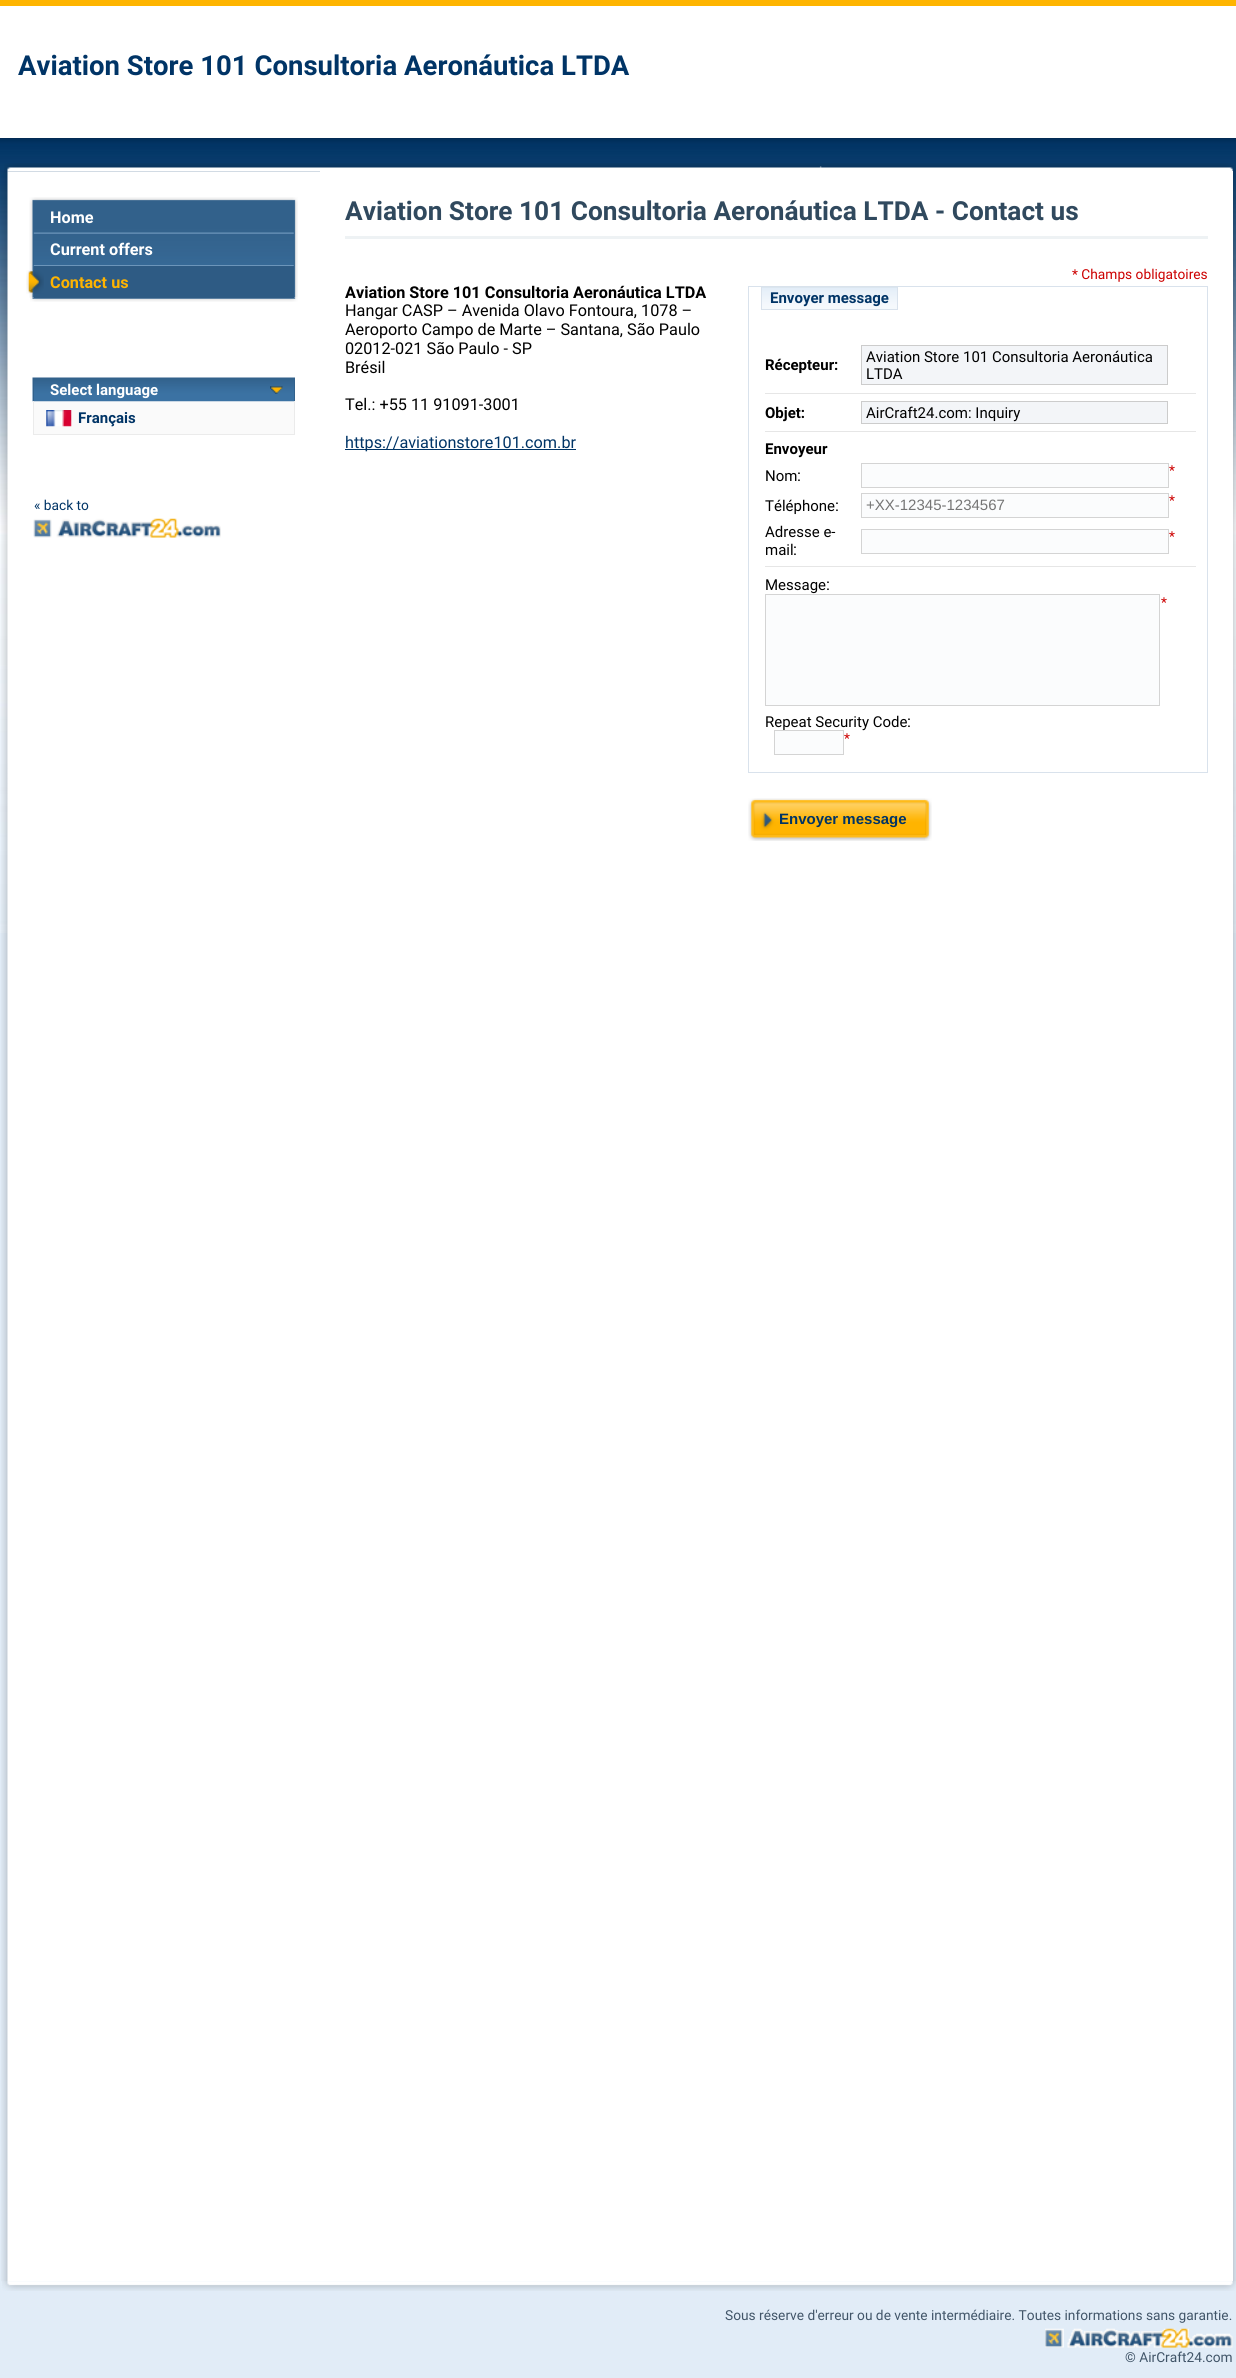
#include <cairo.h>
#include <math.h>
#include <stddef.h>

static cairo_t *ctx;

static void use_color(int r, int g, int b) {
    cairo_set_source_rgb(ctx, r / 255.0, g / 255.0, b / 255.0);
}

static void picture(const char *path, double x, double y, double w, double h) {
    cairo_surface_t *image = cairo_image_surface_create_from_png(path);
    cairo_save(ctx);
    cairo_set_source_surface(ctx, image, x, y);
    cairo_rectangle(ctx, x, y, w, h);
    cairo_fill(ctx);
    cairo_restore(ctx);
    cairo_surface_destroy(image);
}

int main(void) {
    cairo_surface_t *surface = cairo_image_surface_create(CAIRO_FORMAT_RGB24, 1236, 2378);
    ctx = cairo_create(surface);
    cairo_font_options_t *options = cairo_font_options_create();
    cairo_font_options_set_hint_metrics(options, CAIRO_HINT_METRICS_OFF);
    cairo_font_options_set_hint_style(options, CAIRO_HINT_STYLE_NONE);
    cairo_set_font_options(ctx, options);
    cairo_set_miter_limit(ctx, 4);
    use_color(225, 236, 247);
    cairo_paint(ctx);
    picture("img1.png", 0, 0, 1236, 933);
    use_color(255, 255, 255);
    cairo_rectangle(ctx, 0, 6, 1236, 132);
    cairo_fill(ctx);
    cairo_select_font_face(ctx, "Roboto", CAIRO_FONT_SLANT_NORMAL, CAIRO_FONT_WEIGHT_BOLD);
    cairo_set_font_size(ctx, 27.5);
    use_color(0, 52, 102);
    cairo_move_to(ctx, 18, 75);
    cairo_show_text(ctx, "Aviation Store 101 Consultoria Aeronáutica LTDA");
    picture("img2.png", 4, 163, 1232, 9);
    picture("img3.png", 1, 171, 1235, 2111);
    picture("img4.png", 30, 297, 268, 5);
    picture("img5.png", 29, 197, 269, 101);
    picture("img6.png", 33, 232, 261, 2);
    cairo_set_font_size(ctx, 16.25);
    use_color(255, 255, 255);
    cairo_move_to(ctx, 50, 223);
    cairo_show_text(ctx, "Home");
    picture("img7.png", 33, 265, 261, 2);
    cairo_move_to(ctx, 50, 255);
    cairo_show_text(ctx, "Current offers");
    use_color(46, 91, 132);
    cairo_rectangle(ctx, 34, 266, 260, 32);
    cairo_fill(ctx);
    picture("img8.png", 26, 270, 18, 24);
    use_color(255, 180, 0);
    cairo_move_to(ctx, 50, 288);
    cairo_show_text(ctx, "Contact us");
    use_color(250, 250, 250);
    cairo_rectangle(ctx, 34, 401, 260, 33);
    cairo_fill(ctx);
    use_color(235, 235, 235);
    cairo_rectangle(ctx, 33, 434, 262, 1);
    cairo_fill(ctx);
    picture("img9.png", 32, 377, 263, 25);
    use_color(50, 97, 139);
    cairo_rectangle(ctx, 294, 378, 1, 23);
    cairo_fill(ctx);
    cairo_rectangle(ctx, 33, 378, 1, 23);
    cairo_fill(ctx);
    picture("img10.png", 270, 386, 13, 8);
    cairo_set_font_size(ctx, 15);
    use_color(255, 255, 255);
    cairo_move_to(ctx, 50, 395);
    cairo_show_text(ctx, "Select language");
    picture("img11.png", 46, 410, 26, 17);
    use_color(235, 235, 235);
    cairo_rectangle(ctx, 294, 401, 1, 33);
    cairo_fill(ctx);
    cairo_rectangle(ctx, 33, 401, 1, 33);
    cairo_fill(ctx);
    use_color(0, 52, 102);
    cairo_move_to(ctx, 78, 423);
    cairo_show_text(ctx, "Français");
    picture("img12.png", 33, 518, 188, 20);
    cairo_select_font_face(ctx, "Roboto", CAIRO_FONT_SLANT_NORMAL, CAIRO_FONT_WEIGHT_NORMAL);
    cairo_set_font_size(ctx, 13.75);
    cairo_move_to(ctx, 34, 510);
    cairo_show_text(ctx, "« back to");
    use_color(255, 255, 255);
    cairo_rectangle(ctx, 320, 171, 913, 2110);
    cairo_fill(ctx);
    use_color(238, 242, 244);
    cairo_rectangle(ctx, 345, 236, 863, 3);
    cairo_fill(ctx);
    cairo_select_font_face(ctx, "Roboto", CAIRO_FONT_SLANT_NORMAL, CAIRO_FONT_WEIGHT_BOLD);
    cairo_set_font_size(ctx, 26.25);
    use_color(48, 73, 94);
    cairo_move_to(ctx, 345, 220);
    cairo_show_text(ctx, "Aviation Store 101 Consultoria Aeronáutica LTDA - Contact us");
    cairo_set_font_size(ctx, 16.25);
    use_color(0, 0, 0);
    cairo_move_to(ctx, 345, 298);
    cairo_show_text(ctx, "Aviation Store 101 Consultoria Aeronáutica LTDA");
    cairo_select_font_face(ctx, "Roboto", CAIRO_FONT_SLANT_NORMAL, CAIRO_FONT_WEIGHT_NORMAL);
    cairo_move_to(ctx, 345, 316);
    cairo_show_text(ctx, "Hangar CASP – Avenida Olavo Fontoura, 1078 –");
    cairo_move_to(ctx, 345, 335);
    cairo_show_text(ctx, "Aeroporto Campo de Marte – Santana, São Paulo");
    cairo_move_to(ctx, 345, 354);
    cairo_show_text(ctx, "02012-021 São Paulo - SP");
    cairo_move_to(ctx, 345, 373);
    cairo_show_text(ctx, "Brésil");
    cairo_move_to(ctx, 345, 410);
    cairo_show_text(ctx, "Tel.: +55 11 91091-3001");
    use_color(0, 52, 102);
    cairo_rectangle(ctx, 345, 449, 231, 1);
    cairo_fill(ctx);
    cairo_move_to(ctx, 345, 448);
    cairo_show_text(ctx, "https://aviationstore101.com.br");
    cairo_set_font_size(ctx, 13.75);
    use_color(204, 0, 0);
    cairo_move_to(ctx, 1072, 279);
    cairo_show_text(ctx, "* Champs obligatoires");
    cairo_rectangle(ctx, 748.5, 286.5, 459, 486);
    use_color(217, 226, 236);
    cairo_set_line_width(ctx, 1);
    cairo_stroke(ctx);
    use_color(211, 222, 231);
    cairo_rectangle(ctx, 762, 287, 135, 1);
    cairo_fill(ctx);
    picture("img13.png", 762, 287, 135, 22);
    cairo_rectangle(ctx, 761.5, 286.5, 136, 23);
    use_color(217, 226, 236);
    cairo_stroke(ctx);
    cairo_select_font_face(ctx, "Roboto", CAIRO_FONT_SLANT_NORMAL, CAIRO_FONT_WEIGHT_BOLD);
    cairo_set_font_size(ctx, 15);
    use_color(0, 52, 102);
    cairo_move_to(ctx, 770, 303);
    cairo_show_text(ctx, "Envoyer message");
    use_color(0, 0, 0);
    cairo_move_to(ctx, 765, 370);
    cairo_show_text(ctx, "Récepteur:");
    use_color(243, 245, 248);
    cairo_rectangle(ctx, 861.5, 345.5, 306, 39);
    cairo_fill_preserve(ctx);
    use_color(204, 204, 204);
    cairo_stroke(ctx);
    cairo_select_font_face(ctx, "Roboto", CAIRO_FONT_SLANT_NORMAL, CAIRO_FONT_WEIGHT_NORMAL);
    use_color(0, 0, 0);
    cairo_move_to(ctx, 866, 362);
    cairo_show_text(ctx, "Aviation Store 101 Consultoria Aeronáutica");
    cairo_move_to(ctx, 866, 379);
    cairo_show_text(ctx, "LTDA");
    use_color(230, 230, 230);
    cairo_rectangle(ctx, 765, 393, 431, 1);
    cairo_fill(ctx);
    cairo_select_font_face(ctx, "Roboto", CAIRO_FONT_SLANT_NORMAL, CAIRO_FONT_WEIGHT_BOLD);
    use_color(0, 0, 0);
    cairo_move_to(ctx, 765, 418);
    cairo_show_text(ctx, "Objet:");
    use_color(243, 245, 248);
    cairo_rectangle(ctx, 861.5, 401.5, 306, 22);
    cairo_fill_preserve(ctx);
    use_color(204, 204, 204);
    cairo_stroke(ctx);
    cairo_select_font_face(ctx, "Roboto", CAIRO_FONT_SLANT_NORMAL, CAIRO_FONT_WEIGHT_NORMAL);
    use_color(0, 0, 0);
    cairo_move_to(ctx, 866, 418);
    cairo_show_text(ctx, "AirCraft24.com: Inquiry");
    use_color(230, 230, 230);
    cairo_rectangle(ctx, 765, 431, 431, 1);
    cairo_fill(ctx);
    cairo_select_font_face(ctx, "Roboto", CAIRO_FONT_SLANT_NORMAL, CAIRO_FONT_WEIGHT_BOLD);
    use_color(0, 0, 0);
    cairo_move_to(ctx, 765, 454);
    cairo_show_text(ctx, "Envoyeur");
    use_color(251, 252, 253);
    cairo_rectangle(ctx, 861.5, 463.5, 307, 24);
    cairo_fill_preserve(ctx);
    use_color(212, 212, 212);
    cairo_stroke(ctx);
    cairo_select_font_face(ctx, "Roboto", CAIRO_FONT_SLANT_NORMAL, CAIRO_FONT_WEIGHT_NORMAL);
    cairo_set_font_size(ctx, 13.75);
    use_color(204, 0, 0);
    cairo_move_to(ctx, 1169, 475);
    cairo_show_text(ctx, "*");
    cairo_set_font_size(ctx, 15);
    use_color(0, 0, 0);
    cairo_move_to(ctx, 765, 481);
    cairo_show_text(ctx, "Nom");
    cairo_set_font_size(ctx, 16.25);
    cairo_move_to(ctx, 797, 481);
    cairo_show_text(ctx, ":");
    cairo_set_font_size(ctx, 15);
    cairo_move_to(ctx, 765, 511);
    cairo_show_text(ctx, "Téléphone");
    cairo_set_font_size(ctx, 16.25);
    cairo_move_to(ctx, 835, 511);
    cairo_show_text(ctx, ":");
    cairo_set_font_size(ctx, 13.75);
    use_color(204, 0, 0);
    cairo_move_to(ctx, 1169, 505);
    cairo_show_text(ctx, "*");
    use_color(251, 252, 253);
    cairo_rectangle(ctx, 861.5, 493.5, 307, 24);
    cairo_fill_preserve(ctx);
    use_color(212, 212, 212);
    cairo_stroke(ctx);
    cairo_select_font_face(ctx, "Liberation Sans", CAIRO_FONT_SLANT_NORMAL, CAIRO_FONT_WEIGHT_NORMAL);
    cairo_set_font_size(ctx, 15);
    use_color(117, 117, 117);
    cairo_move_to(ctx, 866, 510);
    cairo_show_text(ctx, "+XX-12345-1234567");
    cairo_select_font_face(ctx, "Roboto", CAIRO_FONT_SLANT_NORMAL, CAIRO_FONT_WEIGHT_NORMAL);
    use_color(0, 0, 0);
    cairo_move_to(ctx, 765, 537);
    cairo_show_text(ctx, "Adresse e-");
    cairo_move_to(ctx, 765, 555);
    cairo_show_text(ctx, "mail");
    cairo_set_font_size(ctx, 16.25);
    cairo_move_to(ctx, 793, 555);
    cairo_show_text(ctx, ":");
    use_color(251, 252, 253);
    cairo_rectangle(ctx, 861.5, 529.5, 307, 24);
    cairo_fill_preserve(ctx);
    use_color(212, 212, 212);
    cairo_stroke(ctx);
    cairo_set_font_size(ctx, 13.75);
    use_color(204, 0, 0);
    cairo_move_to(ctx, 1169, 541);
    cairo_show_text(ctx, "*");
    use_color(230, 230, 230);
    cairo_rectangle(ctx, 765, 566, 431, 1);
    cairo_fill(ctx);
    cairo_set_font_size(ctx, 15);
    use_color(0, 0, 0);
    cairo_move_to(ctx, 765, 590);
    cairo_show_text(ctx, "Message");
    cairo_set_font_size(ctx, 16.25);
    cairo_move_to(ctx, 826, 590);
    cairo_show_text(ctx, ":");
    use_color(251, 252, 253);
    cairo_rectangle(ctx, 765.5, 594.5, 394, 111);
    cairo_fill_preserve(ctx);
    use_color(212, 212, 212);
    cairo_stroke(ctx);
    cairo_set_font_size(ctx, 13.75);
    use_color(204, 0, 0);
    cairo_move_to(ctx, 1161, 607);
    cairo_show_text(ctx, "*");
    cairo_set_font_size(ctx, 15);
    use_color(0, 0, 0);
    cairo_move_to(ctx, 765, 727);
    cairo_show_text(ctx, "Repeat Security Code");
    cairo_set_font_size(ctx, 16.25);
    cairo_move_to(ctx, 907, 727);
    cairo_show_text(ctx, ":");
    use_color(251, 252, 253);
    cairo_rectangle(ctx, 774.5, 730.5, 69, 24);
    cairo_fill_preserve(ctx);
    use_color(212, 212, 212);
    cairo_stroke(ctx);
    cairo_set_font_size(ctx, 13.75);
    use_color(204, 0, 0);
    cairo_move_to(ctx, 844, 743);
    cairo_show_text(ctx, "*");
    picture("img14.png", 748, 798, 177, 43);
    cairo_select_font_face(ctx, "Liberation Sans", CAIRO_FONT_SLANT_NORMAL, CAIRO_FONT_WEIGHT_BOLD);
    cairo_set_font_size(ctx, 15);
    use_color(0, 52, 102);
    cairo_move_to(ctx, 779, 824);
    cairo_show_text(ctx, "Envoyer message");
    picture("img15.png", 925, 798, 7, 43);
    picture("img16.png", 2, 2281, 1234, 10);
    cairo_select_font_face(ctx, "Roboto", CAIRO_FONT_SLANT_NORMAL, CAIRO_FONT_WEIGHT_NORMAL);
    cairo_set_font_size(ctx, 13.75);
    use_color(65, 85, 104);
    cairo_move_to(ctx, 725, 2320);
    cairo_show_text(ctx, "Sous réserve d'erreur ou de vente intermédiaire. Toutes informations sans garantie.");
    picture("img17.png", 1045, 2328, 188, 20);
    cairo_move_to(ctx, 1125, 2362);
    cairo_show_text(ctx, "© AirCraft24.com");
    cairo_surface_write_to_png(surface, "result.png");
    cairo_font_options_destroy(options);
    cairo_destroy(ctx);
    cairo_surface_destroy(surface);
    return 0;
}
